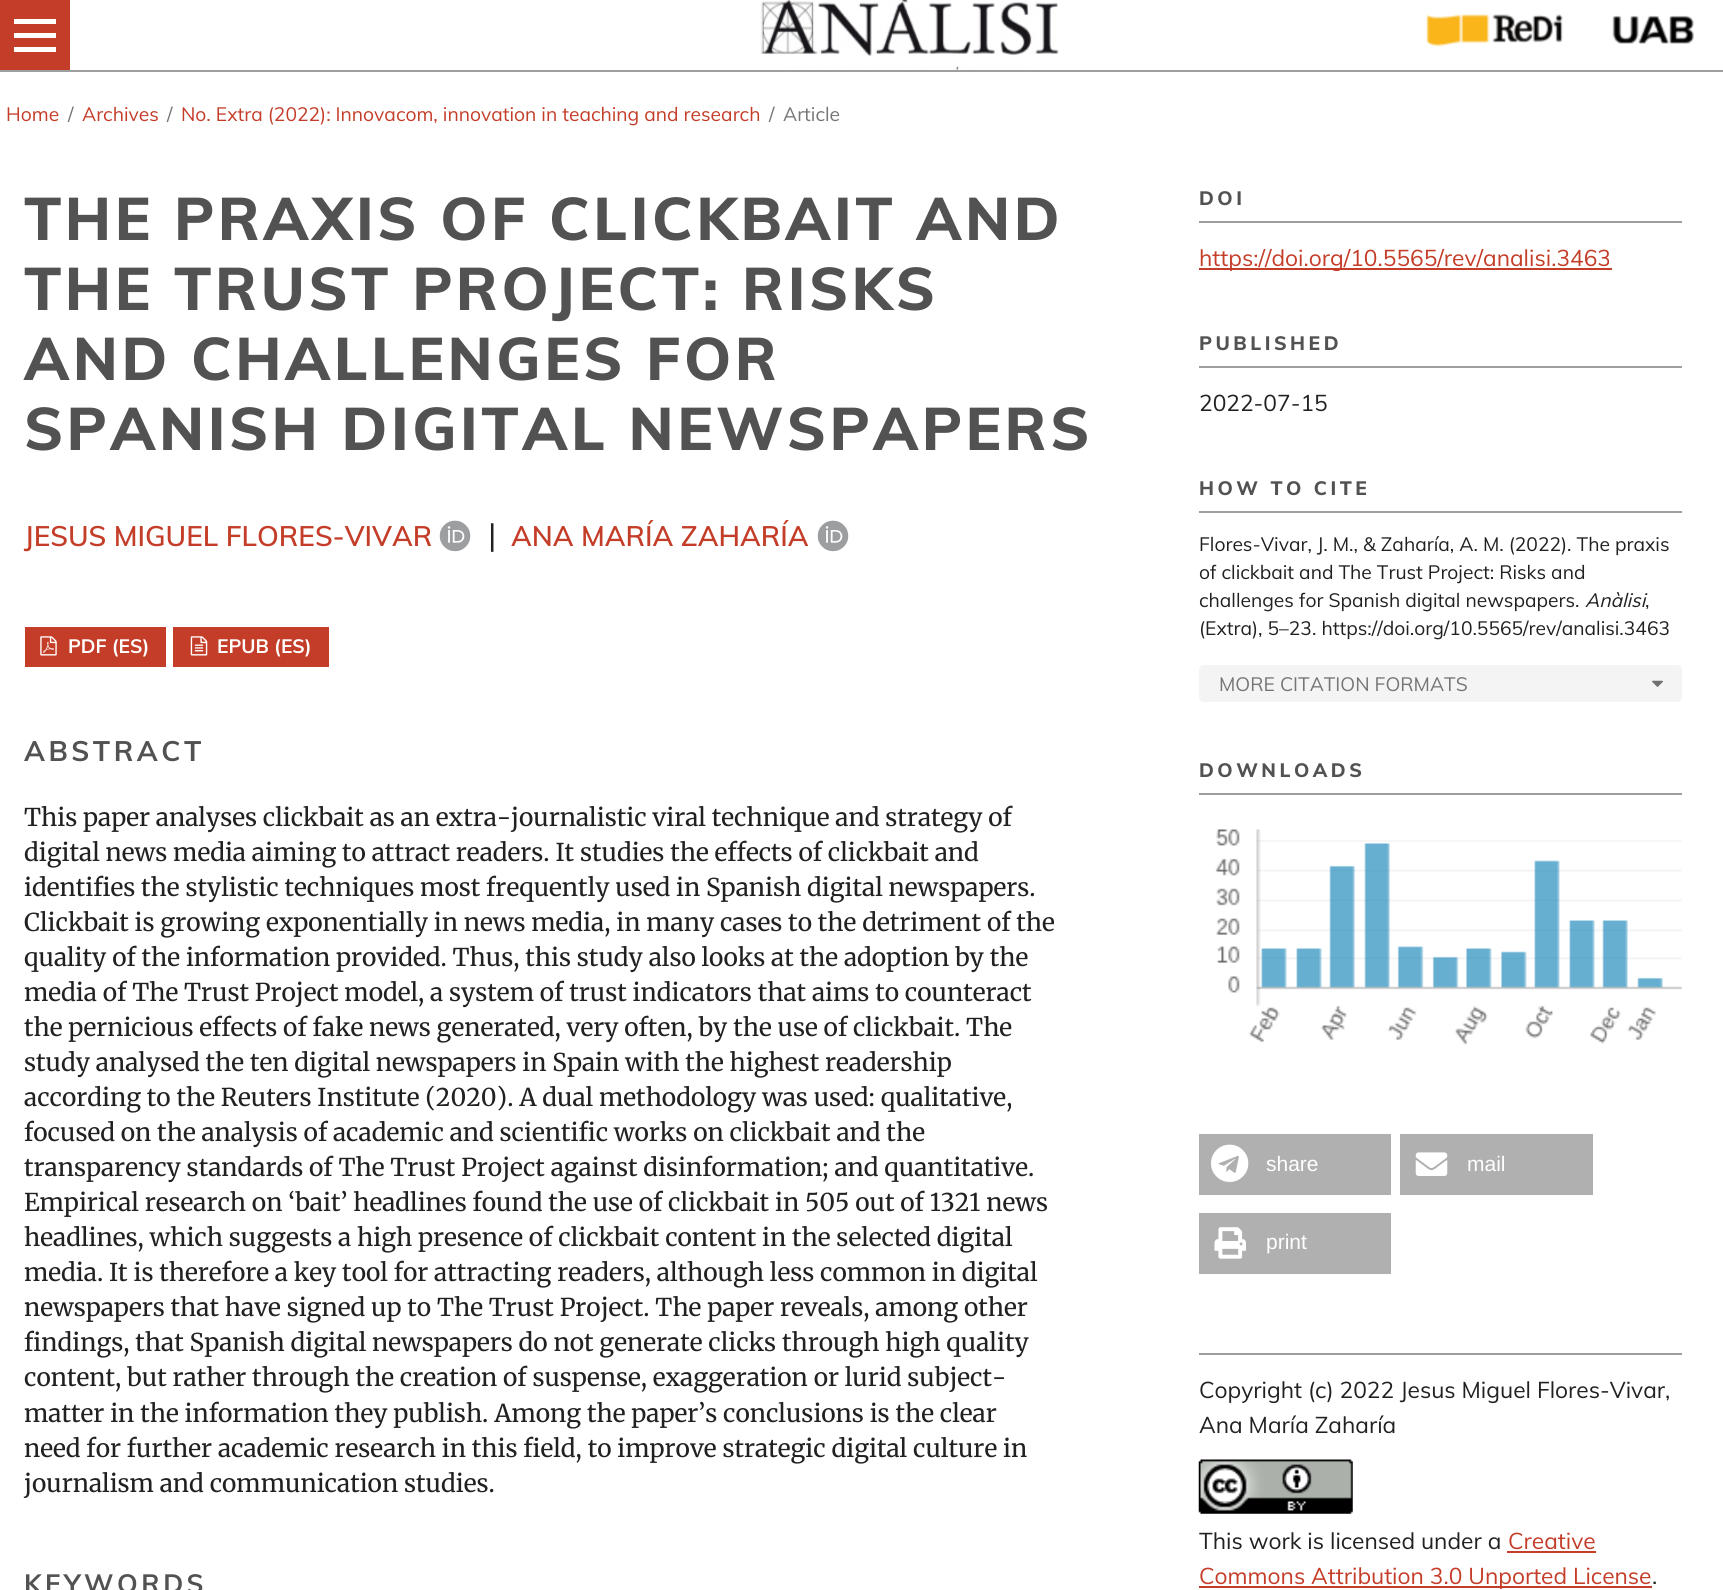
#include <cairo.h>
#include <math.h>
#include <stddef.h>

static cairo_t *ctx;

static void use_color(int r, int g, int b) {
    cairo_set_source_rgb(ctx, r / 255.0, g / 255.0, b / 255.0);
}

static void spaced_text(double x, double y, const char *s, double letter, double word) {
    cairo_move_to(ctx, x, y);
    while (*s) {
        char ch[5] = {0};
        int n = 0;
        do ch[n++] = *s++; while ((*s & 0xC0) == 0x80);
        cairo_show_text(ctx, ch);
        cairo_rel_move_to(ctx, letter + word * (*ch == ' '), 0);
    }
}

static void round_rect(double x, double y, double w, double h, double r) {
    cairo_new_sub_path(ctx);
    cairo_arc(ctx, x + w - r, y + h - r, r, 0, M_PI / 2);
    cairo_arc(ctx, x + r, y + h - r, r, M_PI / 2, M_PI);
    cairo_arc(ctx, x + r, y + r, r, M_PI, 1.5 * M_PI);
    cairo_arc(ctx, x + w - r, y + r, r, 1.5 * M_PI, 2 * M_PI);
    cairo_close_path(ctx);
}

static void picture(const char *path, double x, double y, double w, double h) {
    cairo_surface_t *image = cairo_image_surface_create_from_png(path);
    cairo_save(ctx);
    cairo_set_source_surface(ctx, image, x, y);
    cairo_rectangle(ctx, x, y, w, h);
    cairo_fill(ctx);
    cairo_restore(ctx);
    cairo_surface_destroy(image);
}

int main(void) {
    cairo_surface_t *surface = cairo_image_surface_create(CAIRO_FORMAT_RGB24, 1723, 1590);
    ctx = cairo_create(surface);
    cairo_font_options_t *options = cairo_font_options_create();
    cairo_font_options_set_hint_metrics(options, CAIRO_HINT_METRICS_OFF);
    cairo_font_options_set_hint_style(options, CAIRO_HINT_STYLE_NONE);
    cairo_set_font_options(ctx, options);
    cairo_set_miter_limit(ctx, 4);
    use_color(255, 255, 255);
    cairo_paint(ctx);
    use_color(156, 158, 159);
    cairo_rectangle(ctx, 0, 70, 1723, 2);
    cairo_fill(ctx);
    use_color(196, 61, 40);
    cairo_rectangle(ctx, 0, 0, 70, 70);
    cairo_fill(ctx);
    use_color(255, 255, 255);
    cairo_rectangle(ctx, 14, 47, 42, 5);
    cairo_fill(ctx);
    cairo_rectangle(ctx, 14, 19, 42, 5);
    cairo_fill(ctx);
    cairo_rectangle(ctx, 14, 33, 42, 5);
    cairo_fill(ctx);
    picture("img1.png", 760, 0, 299, 70);
    picture("img2.png", 1426, 14, 137, 33);
    picture("img3.png", 1612, 15, 82, 29);
    cairo_select_font_face(ctx, "Muli", CAIRO_FONT_SLANT_NORMAL, CAIRO_FONT_WEIGHT_NORMAL);
    cairo_set_font_size(ctx, 19.25);
    use_color(196, 61, 40);
    cairo_move_to(ctx, 6, 121);
    cairo_show_text(ctx, "Home");
    use_color(117, 117, 117);
    cairo_move_to(ctx, 68, 121);
    cairo_show_text(ctx, "/");
    use_color(196, 61, 40);
    cairo_move_to(ctx, 82, 121);
    cairo_show_text(ctx, "Archives");
    use_color(117, 117, 117);
    cairo_move_to(ctx, 167, 121);
    cairo_show_text(ctx, "/");
    use_color(196, 61, 40);
    cairo_move_to(ctx, 181, 121);
    cairo_show_text(ctx, "No. Extra (2022): Innovacom, innovation in teaching and research");
    use_color(117, 117, 117);
    cairo_move_to(ctx, 769, 121);
    cairo_show_text(ctx, "/");
    cairo_move_to(ctx, 783, 121);
    cairo_show_text(ctx, "Article");
    cairo_select_font_face(ctx, "Muli ExtraBold", CAIRO_FONT_SLANT_NORMAL, CAIRO_FONT_WEIGHT_NORMAL);
    cairo_set_font_size(ctx, 59.5);
    use_color(82, 82, 82);
    spaced_text(24, 240, "THE PRAXIS OF CLICKBAIT AND", 3.5, 0);
    spaced_text(24, 310, "THE TRUST PROJECT: RISKS", 3.5, 0);
    spaced_text(24, 380, "AND CHALLENGES FOR", 3.5, 0);
    spaced_text(24, 450, "SPANISH DIGITAL NEWSPAPERS", 3.5, 0);
    cairo_select_font_face(ctx, "Muli SemiBold", CAIRO_FONT_SLANT_NORMAL, CAIRO_FONT_WEIGHT_NORMAL);
    cairo_set_font_size(ctx, 28);
    use_color(196, 61, 40);
    cairo_move_to(ctx, 24, 546);
    cairo_show_text(ctx, "JESUS MIGUEL FLORES-VIVAR");
    picture("img4.png", 439, 520, 32, 32);
    cairo_select_font_face(ctx, "Muli", CAIRO_FONT_SLANT_NORMAL, CAIRO_FONT_WEIGHT_NORMAL);
    cairo_set_font_size(ctx, 32);
    use_color(33, 33, 33);
    cairo_move_to(ctx, 488, 546);
    cairo_show_text(ctx, "|");
    cairo_select_font_face(ctx, "Muli SemiBold", CAIRO_FONT_SLANT_NORMAL, CAIRO_FONT_WEIGHT_NORMAL);
    cairo_set_font_size(ctx, 28);
    use_color(196, 61, 40);
    cairo_move_to(ctx, 511, 546);
    cairo_show_text(ctx, "ANA MARÍA ZAHARÍA");
    picture("img4.png", 817, 520, 32, 32);
    cairo_rectangle(ctx, 25, 627, 141, 40);
    cairo_fill(ctx);
    picture("img5.png", 40, 636, 17, 20);
    cairo_select_font_face(ctx, "Muli", CAIRO_FONT_SLANT_NORMAL, CAIRO_FONT_WEIGHT_BOLD);
    cairo_set_font_size(ctx, 19.25);
    use_color(255, 255, 255);
    cairo_move_to(ctx, 68, 653);
    cairo_show_text(ctx, "PDF (ES)");
    use_color(196, 61, 40);
    cairo_rectangle(ctx, 173, 627, 156, 40);
    cairo_fill(ctx);
    picture("img6.png", 190, 636, 18, 20);
    use_color(255, 255, 255);
    cairo_move_to(ctx, 217, 653);
    cairo_show_text(ctx, "EPUB (ES)");
    cairo_set_font_size(ctx, 28);
    use_color(82, 82, 82);
    spaced_text(24, 761, "ABSTRACT", 3.5, 0);
    cairo_select_font_face(ctx, "Merriweather", CAIRO_FONT_SLANT_NORMAL, CAIRO_FONT_WEIGHT_NORMAL);
    cairo_set_font_size(ctx, 24.5);
    use_color(33, 33, 33);
    cairo_move_to(ctx, 24, 826);
    cairo_show_text(ctx, "This paper analyses clickbait as an extra-journalistic viral technique and strategy of");
    cairo_move_to(ctx, 24, 861);
    cairo_show_text(ctx, "digital news media aiming to attract readers. It studies the effects of clickbait and");
    cairo_move_to(ctx, 24, 896);
    cairo_show_text(ctx, "identifies the stylistic techniques most frequently used in Spanish digital newspapers.");
    cairo_move_to(ctx, 24, 931);
    cairo_show_text(ctx, "Clickbait is growing exponentially in news media, in many cases to the detriment of the");
    cairo_move_to(ctx, 24, 966);
    cairo_show_text(ctx, "quality of the information provided. Thus, this study also looks at the adoption by the");
    cairo_move_to(ctx, 24, 1001);
    cairo_show_text(ctx, "media of The Trust Project model, a system of trust indicators that aims to counteract");
    cairo_move_to(ctx, 24, 1036);
    cairo_show_text(ctx, "the pernicious effects of fake news generated, very often, by the use of clickbait. The");
    cairo_move_to(ctx, 24, 1071);
    cairo_show_text(ctx, "study analysed the ten digital newspapers in Spain with the highest readership");
    cairo_move_to(ctx, 24, 1106);
    cairo_show_text(ctx, "according to the Reuters Institute (2020). A dual methodology was used: qualitative,");
    cairo_move_to(ctx, 24, 1141);
    cairo_show_text(ctx, "focused on the analysis of academic and scientific works on clickbait and the");
    cairo_move_to(ctx, 24, 1176);
    cairo_show_text(ctx, "transparency standards of The Trust Project against disinformation; and quantitative.");
    cairo_move_to(ctx, 24, 1211);
    cairo_show_text(ctx, "Empirical research on ‘bait’ headlines found the use of clickbait in 505 out of 1321 news");
    cairo_move_to(ctx, 24, 1246);
    cairo_show_text(ctx, "headlines, which suggests a high presence of clickbait content in the selected digital");
    cairo_move_to(ctx, 24, 1281);
    cairo_show_text(ctx, "media. It is therefore a key tool for attracting readers, although less common in digital");
    cairo_move_to(ctx, 24, 1316);
    cairo_show_text(ctx, "newspapers that have signed up to The Trust Project. The paper reveals, among other");
    cairo_move_to(ctx, 24, 1351);
    cairo_show_text(ctx, "findings, that Spanish digital newspapers do not generate clicks through high quality");
    cairo_move_to(ctx, 24, 1386);
    cairo_show_text(ctx, "content, but rather through the creation of suspense, exaggeration or lurid subject-");
    cairo_move_to(ctx, 24, 1422);
    cairo_show_text(ctx, "matter in the information they publish. Among the paper’s conclusions is the clear");
    cairo_move_to(ctx, 24, 1457);
    cairo_show_text(ctx, "need for further academic research in this field, to improve strategic digital culture in");
    cairo_move_to(ctx, 24, 1492);
    cairo_show_text(ctx, "journalism and communication studies.");
    cairo_select_font_face(ctx, "Muli", CAIRO_FONT_SLANT_NORMAL, CAIRO_FONT_WEIGHT_BOLD);
    cairo_set_font_size(ctx, 26.25);
    use_color(82, 82, 82);
    spaced_text(24, 1593, "KEYWORDS", 3.5, 0);
    use_color(156, 158, 159);
    cairo_rectangle(ctx, 1199, 221, 483, 2);
    cairo_fill(ctx);
    cairo_select_font_face(ctx, "Muli ExtraBold", CAIRO_FONT_SLANT_NORMAL, CAIRO_FONT_WEIGHT_NORMAL);
    cairo_set_font_size(ctx, 19.25);
    use_color(82, 82, 82);
    spaced_text(1199, 205, "DOI", 3.5, 0);
    use_color(196, 61, 40);
    cairo_rectangle(ctx, 1199, 268, 413, 2);
    cairo_fill(ctx);
    cairo_select_font_face(ctx, "Muli", CAIRO_FONT_SLANT_NORMAL, CAIRO_FONT_WEIGHT_NORMAL);
    cairo_set_font_size(ctx, 22.75);
    cairo_move_to(ctx, 1199, 266);
    cairo_show_text(ctx, "https://doi.org/10.5565/rev/analisi.3463");
    use_color(156, 158, 159);
    cairo_rectangle(ctx, 1199, 366, 483, 2);
    cairo_fill(ctx);
    cairo_select_font_face(ctx, "Muli ExtraBold", CAIRO_FONT_SLANT_NORMAL, CAIRO_FONT_WEIGHT_NORMAL);
    cairo_set_font_size(ctx, 19.25);
    use_color(82, 82, 82);
    spaced_text(1199, 350, "PUBLISHED", 3.5, 0);
    cairo_select_font_face(ctx, "Muli", CAIRO_FONT_SLANT_NORMAL, CAIRO_FONT_WEIGHT_NORMAL);
    cairo_set_font_size(ctx, 22.75);
    use_color(33, 33, 33);
    cairo_move_to(ctx, 1199, 411);
    cairo_show_text(ctx, "2022-07-15");
    use_color(156, 158, 159);
    cairo_rectangle(ctx, 1199, 511, 483, 2);
    cairo_fill(ctx);
    cairo_select_font_face(ctx, "Muli ExtraBold", CAIRO_FONT_SLANT_NORMAL, CAIRO_FONT_WEIGHT_NORMAL);
    cairo_set_font_size(ctx, 19.25);
    use_color(82, 82, 82);
    spaced_text(1199, 495, "HOW TO CITE", 3.5, 0);
    cairo_select_font_face(ctx, "Muli", CAIRO_FONT_SLANT_NORMAL, CAIRO_FONT_WEIGHT_NORMAL);
    use_color(33, 33, 33);
    cairo_move_to(ctx, 1199, 551);
    cairo_show_text(ctx, "Flores-Vivar, J. M., & Zaharía, A. M. (2022). The praxis");
    cairo_move_to(ctx, 1199, 579);
    cairo_show_text(ctx, "of clickbait and The Trust Project: Risks and");
    cairo_move_to(ctx, 1199, 607);
    cairo_show_text(ctx, "challenges for Spanish digital newspapers.");
    cairo_select_font_face(ctx, "Muli", CAIRO_FONT_SLANT_ITALIC, CAIRO_FONT_WEIGHT_NORMAL);
    cairo_move_to(ctx, 1585, 607);
    cairo_show_text(ctx, "Anàlisi");
    cairo_select_font_face(ctx, "Muli", CAIRO_FONT_SLANT_NORMAL, CAIRO_FONT_WEIGHT_NORMAL);
    cairo_move_to(ctx, 1645, 607);
    cairo_show_text(ctx, ",");
    cairo_move_to(ctx, 1199, 635);
    cairo_show_text(ctx, "(Extra), 5–23. https://doi.org/10.5565/rev/analisi.3463");
    use_color(244, 244, 244);
    round_rect(1199, 665, 483, 37, 5);
    cairo_fill(ctx);
    use_color(117, 117, 117);
    cairo_move_to(ctx, 1219, 691);
    cairo_show_text(ctx, "MORE CITATION FORMATS");
    picture("img7.png", 1652, 680, 11, 7);
    use_color(156, 158, 159);
    cairo_rectangle(ctx, 1199, 793, 483, 2);
    cairo_fill(ctx);
    cairo_select_font_face(ctx, "Muli ExtraBold", CAIRO_FONT_SLANT_NORMAL, CAIRO_FONT_WEIGHT_NORMAL);
    use_color(82, 82, 82);
    spaced_text(1199, 777, "DOWNLOADS", 3.5, 0);
    picture("img8.png", 1215, 829, 467, 216);
    use_color(176, 176, 176);
    cairo_rectangle(ctx, 1199, 1134, 192, 61);
    cairo_fill(ctx);
    picture("img9.png", 1211, 1144, 38, 38);
    cairo_select_font_face(ctx, "Liberation Sans", CAIRO_FONT_SLANT_NORMAL, CAIRO_FONT_WEIGHT_NORMAL);
    cairo_set_font_size(ctx, 21);
    use_color(255, 255, 255);
    cairo_move_to(ctx, 1266, 1171);
    cairo_show_text(ctx, "share");
    use_color(176, 176, 176);
    cairo_rectangle(ctx, 1400, 1134, 193, 61);
    cairo_fill(ctx);
    picture("img10.png", 1415, 1152, 33, 24);
    use_color(255, 255, 255);
    cairo_move_to(ctx, 1467, 1171);
    cairo_show_text(ctx, "mail");
    use_color(176, 176, 176);
    cairo_rectangle(ctx, 1199, 1213, 192, 61);
    cairo_fill(ctx);
    picture("img11.png", 1214, 1227, 32, 32);
    use_color(255, 255, 255);
    cairo_move_to(ctx, 1266, 1249);
    cairo_show_text(ctx, "print");
    use_color(156, 158, 159);
    cairo_rectangle(ctx, 1199, 1353, 483, 2);
    cairo_fill(ctx);
    cairo_select_font_face(ctx, "Muli", CAIRO_FONT_SLANT_NORMAL, CAIRO_FONT_WEIGHT_NORMAL);
    cairo_set_font_size(ctx, 22.75);
    use_color(33, 33, 33);
    cairo_move_to(ctx, 1199, 1398);
    cairo_show_text(ctx, "Copyright (c) 2022 Jesus Miguel Flores-Vivar,");
    cairo_move_to(ctx, 1199, 1433);
    cairo_show_text(ctx, "Ana María Zaharía");
    picture("img12.png", 1198, 1459, 155, 55);
    cairo_move_to(ctx, 1199, 1549);
    cairo_show_text(ctx, "This work is licensed under a");
    use_color(196, 61, 40);
    cairo_move_to(ctx, 1508, 1549);
    cairo_show_text(ctx, "Creative");
    cairo_rectangle(ctx, 1507, 1551, 89, 2);
    cairo_fill(ctx);
    cairo_rectangle(ctx, 1199, 1586, 453, 2);
    cairo_fill(ctx);
    cairo_move_to(ctx, 1199, 1584);
    cairo_show_text(ctx, "Commons Attribution 3.0 Unported License");
    use_color(33, 33, 33);
    cairo_move_to(ctx, 1652, 1584);
    cairo_show_text(ctx, ".");
    cairo_surface_write_to_png(surface, "result.png");
    cairo_font_options_destroy(options);
    cairo_destroy(ctx);
    cairo_surface_destroy(surface);
    return 0;
}
